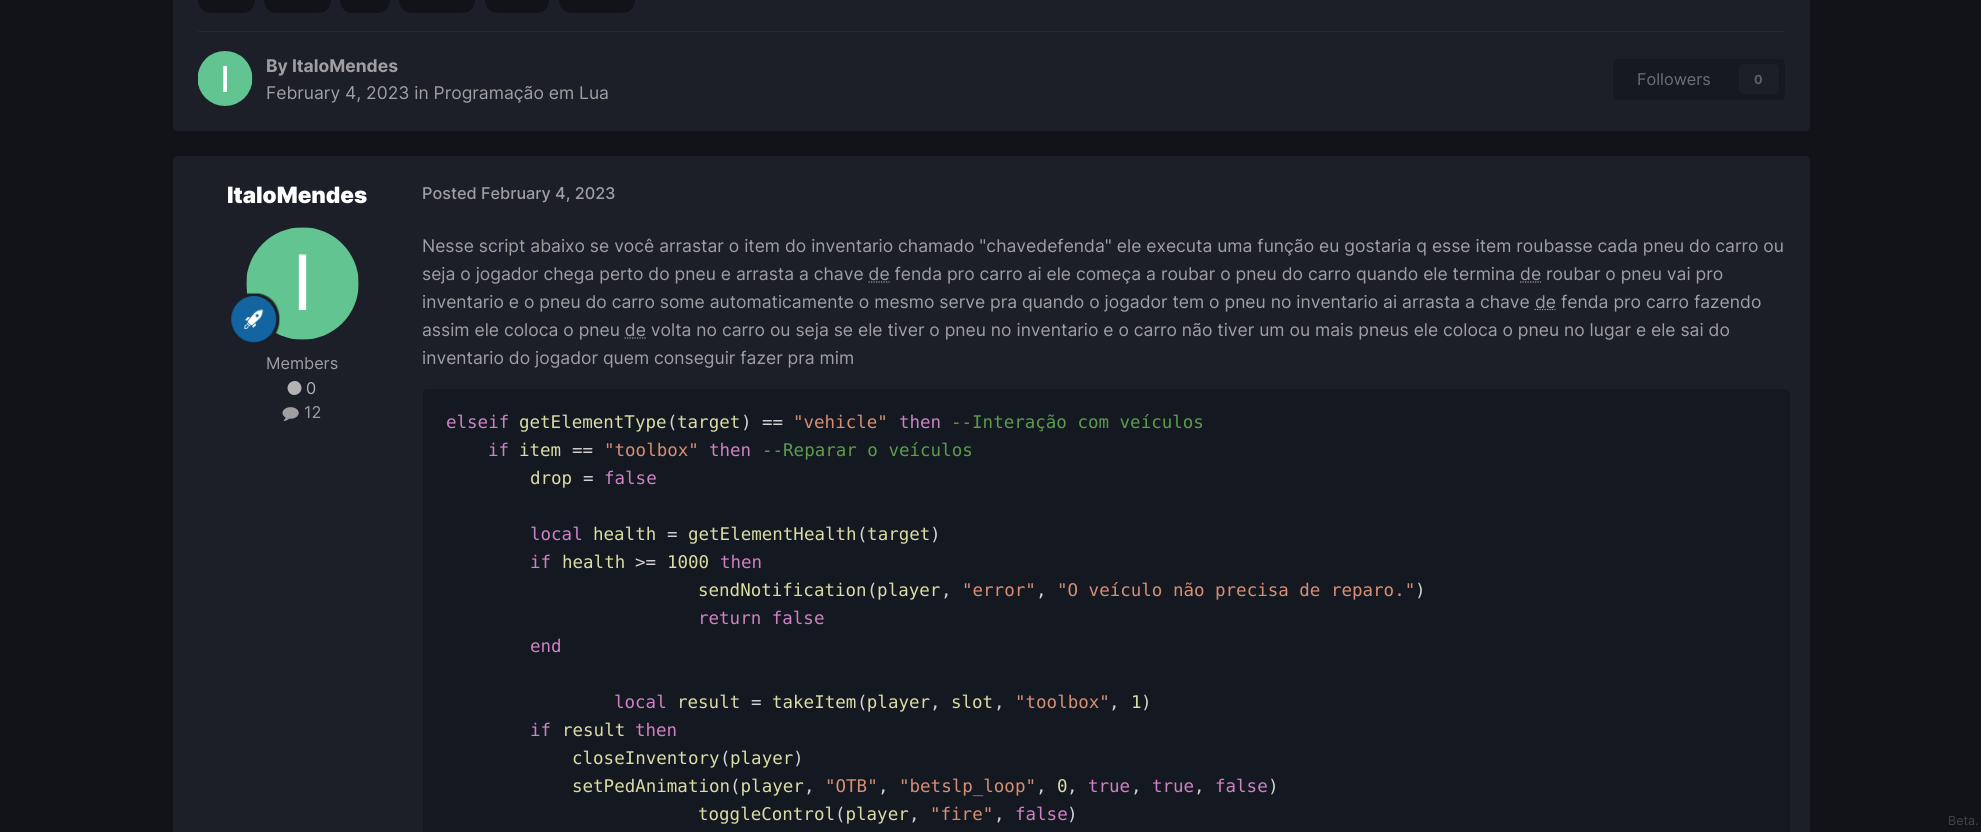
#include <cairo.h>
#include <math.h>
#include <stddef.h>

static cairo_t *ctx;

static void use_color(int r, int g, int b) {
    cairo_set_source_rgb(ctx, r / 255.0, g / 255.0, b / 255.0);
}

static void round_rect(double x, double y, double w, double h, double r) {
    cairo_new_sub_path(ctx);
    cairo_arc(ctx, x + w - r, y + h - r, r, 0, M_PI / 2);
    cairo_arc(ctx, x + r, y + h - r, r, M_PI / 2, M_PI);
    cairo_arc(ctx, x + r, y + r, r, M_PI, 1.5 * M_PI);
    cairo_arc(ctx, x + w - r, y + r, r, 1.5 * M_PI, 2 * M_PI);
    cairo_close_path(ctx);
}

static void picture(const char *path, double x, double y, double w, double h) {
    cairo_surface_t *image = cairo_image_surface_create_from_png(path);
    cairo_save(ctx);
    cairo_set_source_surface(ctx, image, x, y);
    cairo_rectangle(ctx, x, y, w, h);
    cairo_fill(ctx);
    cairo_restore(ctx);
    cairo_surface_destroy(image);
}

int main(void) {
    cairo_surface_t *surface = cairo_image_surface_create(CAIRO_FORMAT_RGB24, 1981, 832);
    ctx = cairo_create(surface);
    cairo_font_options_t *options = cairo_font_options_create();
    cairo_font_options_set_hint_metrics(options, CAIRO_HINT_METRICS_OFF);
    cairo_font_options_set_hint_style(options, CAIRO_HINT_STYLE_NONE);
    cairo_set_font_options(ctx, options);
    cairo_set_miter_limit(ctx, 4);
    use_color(18, 19, 25);
    cairo_paint(ctx);
    use_color(28, 30, 40);
    round_rect(173, -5, 1637, 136, 5);
    cairo_fill(ctx);
    use_color(18, 19, 25);
    round_rect(198, -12, 57, 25, 12.5);
    cairo_fill(ctx);
    round_rect(264, -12, 67, 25, 12.5);
    cairo_fill(ctx);
    round_rect(340, -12, 50, 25, 12.5);
    cairo_fill(ctx);
    round_rect(399, -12, 76, 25, 12.5);
    cairo_fill(ctx);
    round_rect(485, -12, 64, 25, 12.5);
    cairo_fill(ctx);
    round_rect(559, -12, 76, 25, 12.5);
    cairo_fill(ctx);
    use_color(38, 40, 50);
    cairo_rectangle(ctx, 198, 31, 1587, 1);
    cairo_fill(ctx);
    picture("img1.png", 198, 51, 55, 55);
    cairo_select_font_face(ctx, "Inter", CAIRO_FONT_SLANT_NORMAL, CAIRO_FONT_WEIGHT_BOLD);
    cairo_set_font_size(ctx, 17.5);
    use_color(159, 159, 162);
    cairo_move_to(ctx, 266, 72);
    cairo_show_text(ctx, "By ItaloMendes");
    cairo_select_font_face(ctx, "Inter", CAIRO_FONT_SLANT_NORMAL, CAIRO_FONT_WEIGHT_NORMAL);
    cairo_move_to(ctx, 266, 99);
    cairo_show_text(ctx, "February 4, 2023 in Programação em Lua");
    use_color(23, 25, 33);
    round_rect(1613, 59, 172, 41, 5);
    cairo_fill(ctx);
    cairo_set_font_size(ctx, 16.25);
    use_color(109, 110, 117);
    cairo_move_to(ctx, 1637, 85);
    cairo_show_text(ctx, "Followers");
    use_color(28, 30, 40);
    round_rect(1739, 64, 40, 30, 5);
    cairo_fill(ctx);
    cairo_select_font_face(ctx, "Inter", CAIRO_FONT_SLANT_NORMAL, CAIRO_FONT_WEIGHT_BOLD);
    cairo_set_font_size(ctx, 12.5);
    use_color(94, 95, 101);
    cairo_move_to(ctx, 1754, 84);
    cairo_show_text(ctx, "0");
    use_color(28, 30, 40);
    round_rect(173, 156, 1637, 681, 5);
    cairo_fill(ctx);
    cairo_select_font_face(ctx, "Inter Black", CAIRO_FONT_SLANT_NORMAL, CAIRO_FONT_WEIGHT_NORMAL);
    cairo_set_font_size(ctx, 22.5);
    use_color(255, 255, 255);
    cairo_move_to(ctx, 227, 203);
    cairo_show_text(ctx, "ItaloMendes");
    picture("img2.png", 246, 227, 113, 113);
    picture("img3.png", 231, 293, 49, 50);
    cairo_select_font_face(ctx, "Inter", CAIRO_FONT_SLANT_NORMAL, CAIRO_FONT_WEIGHT_NORMAL);
    cairo_set_font_size(ctx, 16.25);
    use_color(159, 159, 162);
    cairo_move_to(ctx, 266, 369);
    cairo_show_text(ctx, "Members");
    use_color(179, 179, 179);
    cairo_new_path(ctx);
    cairo_move_to(ctx, 300.5, 384.5);
    cairo_curve_to(ctx, 305, 392.5, 293, 399.5, 288.5, 391.5);
    cairo_curve_to(ctx, 284, 383.5, 296, 376.5, 300.5, 384.5);
    cairo_close_path(ctx);
    cairo_fill(ctx);
    cairo_move_to(ctx, 306, 394);
    cairo_show_text(ctx, "0");
    picture("img4.png", 282, 407, 17, 14);
    use_color(159, 159, 162);
    cairo_move_to(ctx, 304, 418);
    cairo_show_text(ctx, "12");
    cairo_select_font_face(ctx, "Inter Medium", CAIRO_FONT_SLANT_NORMAL, CAIRO_FONT_WEIGHT_NORMAL);
    cairo_move_to(ctx, 422, 199);
    cairo_show_text(ctx, "Posted February 4, 2023");
    cairo_select_font_face(ctx, "Inter", CAIRO_FONT_SLANT_NORMAL, CAIRO_FONT_WEIGHT_NORMAL);
    cairo_set_font_size(ctx, 17.5);
    cairo_move_to(ctx, 422, 252);
    cairo_show_text(ctx, "Nesse script abaixo se você arrastar o item do inventario chamado \"chavedefenda\" ele executa uma função eu gostaria q esse item roubasse cada pneu do carro ou");
    cairo_move_to(ctx, 422, 280);
    cairo_show_text(ctx, "seja o jogador chega perto do pneu e arrasta a chave de fenda pro carro ai ele começa a roubar o pneu do carro quando ele termina de roubar o pneu vai pro");
    cairo_new_path(ctx);
    cairo_move_to(ctx, 868.5, 282);
    cairo_line_to(ctx, 889.5, 282);
    cairo_set_line_width(ctx, 1.2);
    cairo_set_dash(ctx, (double[]){1.25, 1.25}, 2, 0);
    cairo_stroke(ctx);
    cairo_new_path(ctx);
    cairo_move_to(ctx, 1520, 282);
    cairo_line_to(ctx, 1541, 282);
    cairo_stroke(ctx);
    cairo_move_to(ctx, 422, 308);
    cairo_show_text(ctx, "inventario e o pneu do carro some automaticamente o mesmo serve pra quando o jogador tem o pneu no inventario ai arrasta a chave");
    cairo_new_path(ctx);
    cairo_move_to(ctx, 1534.5, 309.5);
    cairo_line_to(ctx, 1555.5, 309.5);
    cairo_stroke(ctx);
    cairo_move_to(ctx, 1535, 308);
    cairo_show_text(ctx, "de fenda pro carro fazendo");
    cairo_move_to(ctx, 422, 336);
    cairo_show_text(ctx, "assim ele coloca o pneu de volta no carro ou seja se ele tiver o pneu no inventario e o carro não tiver um ou mais pneus ele coloca o pneu no lugar e ele sai do");
    cairo_new_path(ctx);
    cairo_move_to(ctx, 624.5, 338);
    cairo_line_to(ctx, 646, 338);
    cairo_stroke(ctx);
    cairo_move_to(ctx, 422, 364);
    cairo_show_text(ctx, "inventario do jogador quem conseguir fazer pra mim");
    use_color(20, 24, 33);
    round_rect(423, 389, 1367, 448, 5);
    cairo_fill(ctx);
    cairo_select_font_face(ctx, "DejaVu Sans Mono", CAIRO_FONT_SLANT_NORMAL, CAIRO_FONT_WEIGHT_NORMAL);
    use_color(208, 129, 196);
    cairo_move_to(ctx, 446, 428);
    cairo_show_text(ctx, "elseif");
    use_color(219, 221, 164);
    cairo_move_to(ctx, 519, 428);
    cairo_show_text(ctx, "getElementType target");
    use_color(212, 212, 212);
    cairo_move_to(ctx, 667, 428);
    cairo_show_text(ctx, "(");
    cairo_move_to(ctx, 741, 428);
    cairo_show_text(ctx, ") ==");
    use_color(216, 142, 115);
    cairo_move_to(ctx, 793, 428);
    cairo_show_text(ctx, "\"vehicle\"");
    use_color(208, 129, 196);
    cairo_move_to(ctx, 899, 428);
    cairo_show_text(ctx, "then");
    use_color(90, 156, 76);
    cairo_move_to(ctx, 951, 428);
    cairo_show_text(ctx, "--Interação com veículos");
    use_color(208, 129, 196);
    cairo_move_to(ctx, 488, 456);
    cairo_show_text(ctx, "if");
    use_color(219, 221, 164);
    cairo_move_to(ctx, 519, 456);
    cairo_show_text(ctx, "item");
    use_color(212, 212, 212);
    cairo_move_to(ctx, 572, 456);
    cairo_show_text(ctx, "==");
    use_color(216, 142, 115);
    cairo_move_to(ctx, 604, 456);
    cairo_show_text(ctx, "\"toolbox\"");
    use_color(208, 129, 196);
    cairo_move_to(ctx, 709, 456);
    cairo_show_text(ctx, "then");
    use_color(90, 156, 76);
    cairo_move_to(ctx, 762, 456);
    cairo_show_text(ctx, "--Reparar o veículos");
    use_color(219, 221, 164);
    cairo_move_to(ctx, 530, 484);
    cairo_show_text(ctx, "drop");
    use_color(212, 212, 212);
    cairo_move_to(ctx, 583, 484);
    cairo_show_text(ctx, "=");
    use_color(208, 129, 196);
    cairo_move_to(ctx, 604, 484);
    cairo_show_text(ctx, "false");
    cairo_move_to(ctx, 530, 540);
    cairo_show_text(ctx, "local");
    use_color(219, 221, 164);
    cairo_move_to(ctx, 593, 540);
    cairo_show_text(ctx, "health");
    cairo_move_to(ctx, 688, 540);
    cairo_show_text(ctx, "getElementHealth target");
    use_color(212, 212, 212);
    cairo_move_to(ctx, 667, 540);
    cairo_show_text(ctx, "=");
    cairo_move_to(ctx, 857, 540);
    cairo_show_text(ctx, "(");
    cairo_move_to(ctx, 930, 540);
    cairo_show_text(ctx, ")");
    use_color(208, 129, 196);
    cairo_move_to(ctx, 530, 568);
    cairo_show_text(ctx, "if");
    use_color(219, 221, 164);
    cairo_move_to(ctx, 562, 568);
    cairo_show_text(ctx, "health");
    use_color(212, 212, 212);
    cairo_move_to(ctx, 635, 568);
    cairo_show_text(ctx, ">=");
    use_color(219, 221, 164);
    cairo_move_to(ctx, 667, 568);
    cairo_show_text(ctx, "1000");
    use_color(208, 129, 196);
    cairo_move_to(ctx, 720, 568);
    cairo_show_text(ctx, "then");
    use_color(219, 221, 164);
    cairo_move_to(ctx, 698, 596);
    cairo_show_text(ctx, "sendNotification player");
    use_color(212, 212, 212);
    cairo_move_to(ctx, 867, 596);
    cairo_show_text(ctx, "(");
    cairo_move_to(ctx, 941, 596);
    cairo_show_text(ctx, ",");
    use_color(216, 142, 115);
    cairo_move_to(ctx, 962, 596);
    cairo_show_text(ctx, "\"error\"");
    use_color(212, 212, 212);
    cairo_move_to(ctx, 1036, 596);
    cairo_show_text(ctx, ",");
    use_color(216, 142, 115);
    cairo_move_to(ctx, 1057, 596);
    cairo_show_text(ctx, "\"O veículo não precisa de reparo.\"");
    use_color(212, 212, 212);
    cairo_move_to(ctx, 1415, 596);
    cairo_show_text(ctx, ")");
    use_color(208, 129, 196);
    cairo_move_to(ctx, 698, 624);
    cairo_show_text(ctx, "return false");
    cairo_move_to(ctx, 530, 652);
    cairo_show_text(ctx, "end");
    cairo_move_to(ctx, 614, 708);
    cairo_show_text(ctx, "local");
    use_color(219, 221, 164);
    cairo_move_to(ctx, 677, 708);
    cairo_show_text(ctx, "result");
    cairo_move_to(ctx, 772, 708);
    cairo_show_text(ctx, "takeItem player");
    use_color(212, 212, 212);
    cairo_move_to(ctx, 751, 708);
    cairo_show_text(ctx, "=");
    cairo_move_to(ctx, 857, 708);
    cairo_show_text(ctx, "(");
    use_color(219, 221, 164);
    cairo_move_to(ctx, 951, 708);
    cairo_show_text(ctx, "slot");
    use_color(216, 142, 115);
    cairo_move_to(ctx, 1015, 708);
    cairo_show_text(ctx, "\"toolbox\"");
    use_color(219, 221, 164);
    cairo_move_to(ctx, 1131, 708);
    cairo_show_text(ctx, "1");
    use_color(212, 212, 212);
    cairo_move_to(ctx, 1141, 708);
    cairo_show_text(ctx, ")");
    cairo_move_to(ctx, 930, 708);
    cairo_show_text(ctx, ",");
    cairo_move_to(ctx, 994, 708);
    cairo_show_text(ctx, ",");
    cairo_move_to(ctx, 1109, 708);
    cairo_show_text(ctx, ",");
    use_color(208, 129, 196);
    cairo_move_to(ctx, 530, 736);
    cairo_show_text(ctx, "if");
    use_color(219, 221, 164);
    cairo_move_to(ctx, 562, 736);
    cairo_show_text(ctx, "result");
    use_color(208, 129, 196);
    cairo_move_to(ctx, 635, 736);
    cairo_show_text(ctx, "then");
    use_color(219, 221, 164);
    cairo_move_to(ctx, 572, 764);
    cairo_show_text(ctx, "closeInventory player");
    use_color(212, 212, 212);
    cairo_move_to(ctx, 720, 764);
    cairo_show_text(ctx, "(");
    cairo_move_to(ctx, 793, 764);
    cairo_show_text(ctx, ")");
    use_color(219, 221, 164);
    cairo_move_to(ctx, 572, 792);
    cairo_show_text(ctx, "setPedAnimation player");
    use_color(212, 212, 212);
    cairo_move_to(ctx, 730, 792);
    cairo_show_text(ctx, "(");
    cairo_move_to(ctx, 804, 792);
    cairo_show_text(ctx, ",");
    use_color(216, 142, 115);
    cairo_move_to(ctx, 825, 792);
    cairo_show_text(ctx, "\"OTB\"");
    use_color(212, 212, 212);
    cairo_move_to(ctx, 878, 792);
    cairo_show_text(ctx, ",");
    use_color(216, 142, 115);
    cairo_move_to(ctx, 899, 792);
    cairo_show_text(ctx, "\"betslp_loop\"");
    use_color(212, 212, 212);
    cairo_move_to(ctx, 1036, 792);
    cairo_show_text(ctx, ",");
    use_color(219, 221, 164);
    cairo_move_to(ctx, 1057, 792);
    cairo_show_text(ctx, "0");
    use_color(212, 212, 212);
    cairo_move_to(ctx, 1067, 792);
    cairo_show_text(ctx, ",");
    use_color(208, 129, 196);
    cairo_move_to(ctx, 1088, 792);
    cairo_show_text(ctx, "true");
    use_color(212, 212, 212);
    cairo_move_to(ctx, 1131, 792);
    cairo_show_text(ctx, ",");
    use_color(208, 129, 196);
    cairo_move_to(ctx, 1152, 792);
    cairo_show_text(ctx, "true");
    use_color(212, 212, 212);
    cairo_move_to(ctx, 1194, 792);
    cairo_show_text(ctx, ",");
    use_color(208, 129, 196);
    cairo_move_to(ctx, 1215, 792);
    cairo_show_text(ctx, "false");
    use_color(212, 212, 212);
    cairo_move_to(ctx, 1268, 792);
    cairo_show_text(ctx, ")");
    use_color(219, 221, 164);
    cairo_move_to(ctx, 698, 820);
    cairo_show_text(ctx, "toggleControl player");
    use_color(212, 212, 212);
    cairo_move_to(ctx, 835, 820);
    cairo_show_text(ctx, "(");
    cairo_move_to(ctx, 909, 820);
    cairo_show_text(ctx, ",");
    use_color(216, 142, 115);
    cairo_move_to(ctx, 930, 820);
    cairo_show_text(ctx, "\"fire\"");
    use_color(212, 212, 212);
    cairo_move_to(ctx, 994, 820);
    cairo_show_text(ctx, ",");
    use_color(208, 129, 196);
    cairo_move_to(ctx, 1015, 820);
    cairo_show_text(ctx, "false");
    use_color(212, 212, 212);
    cairo_move_to(ctx, 1067, 820);
    cairo_show_text(ctx, ")");
    cairo_select_font_face(ctx, "Inter", CAIRO_FONT_SLANT_NORMAL, CAIRO_FONT_WEIGHT_NORMAL);
    cairo_set_font_size(ctx, 12.5);
    use_color(65, 66, 76);
    cairo_move_to(ctx, 1948, 825);
    cairo_show_text(ctx, "Beta.");
    cairo_surface_write_to_png(surface, "result.png");
    cairo_font_options_destroy(options);
    cairo_destroy(ctx);
    cairo_surface_destroy(surface);
    return 0;
}
